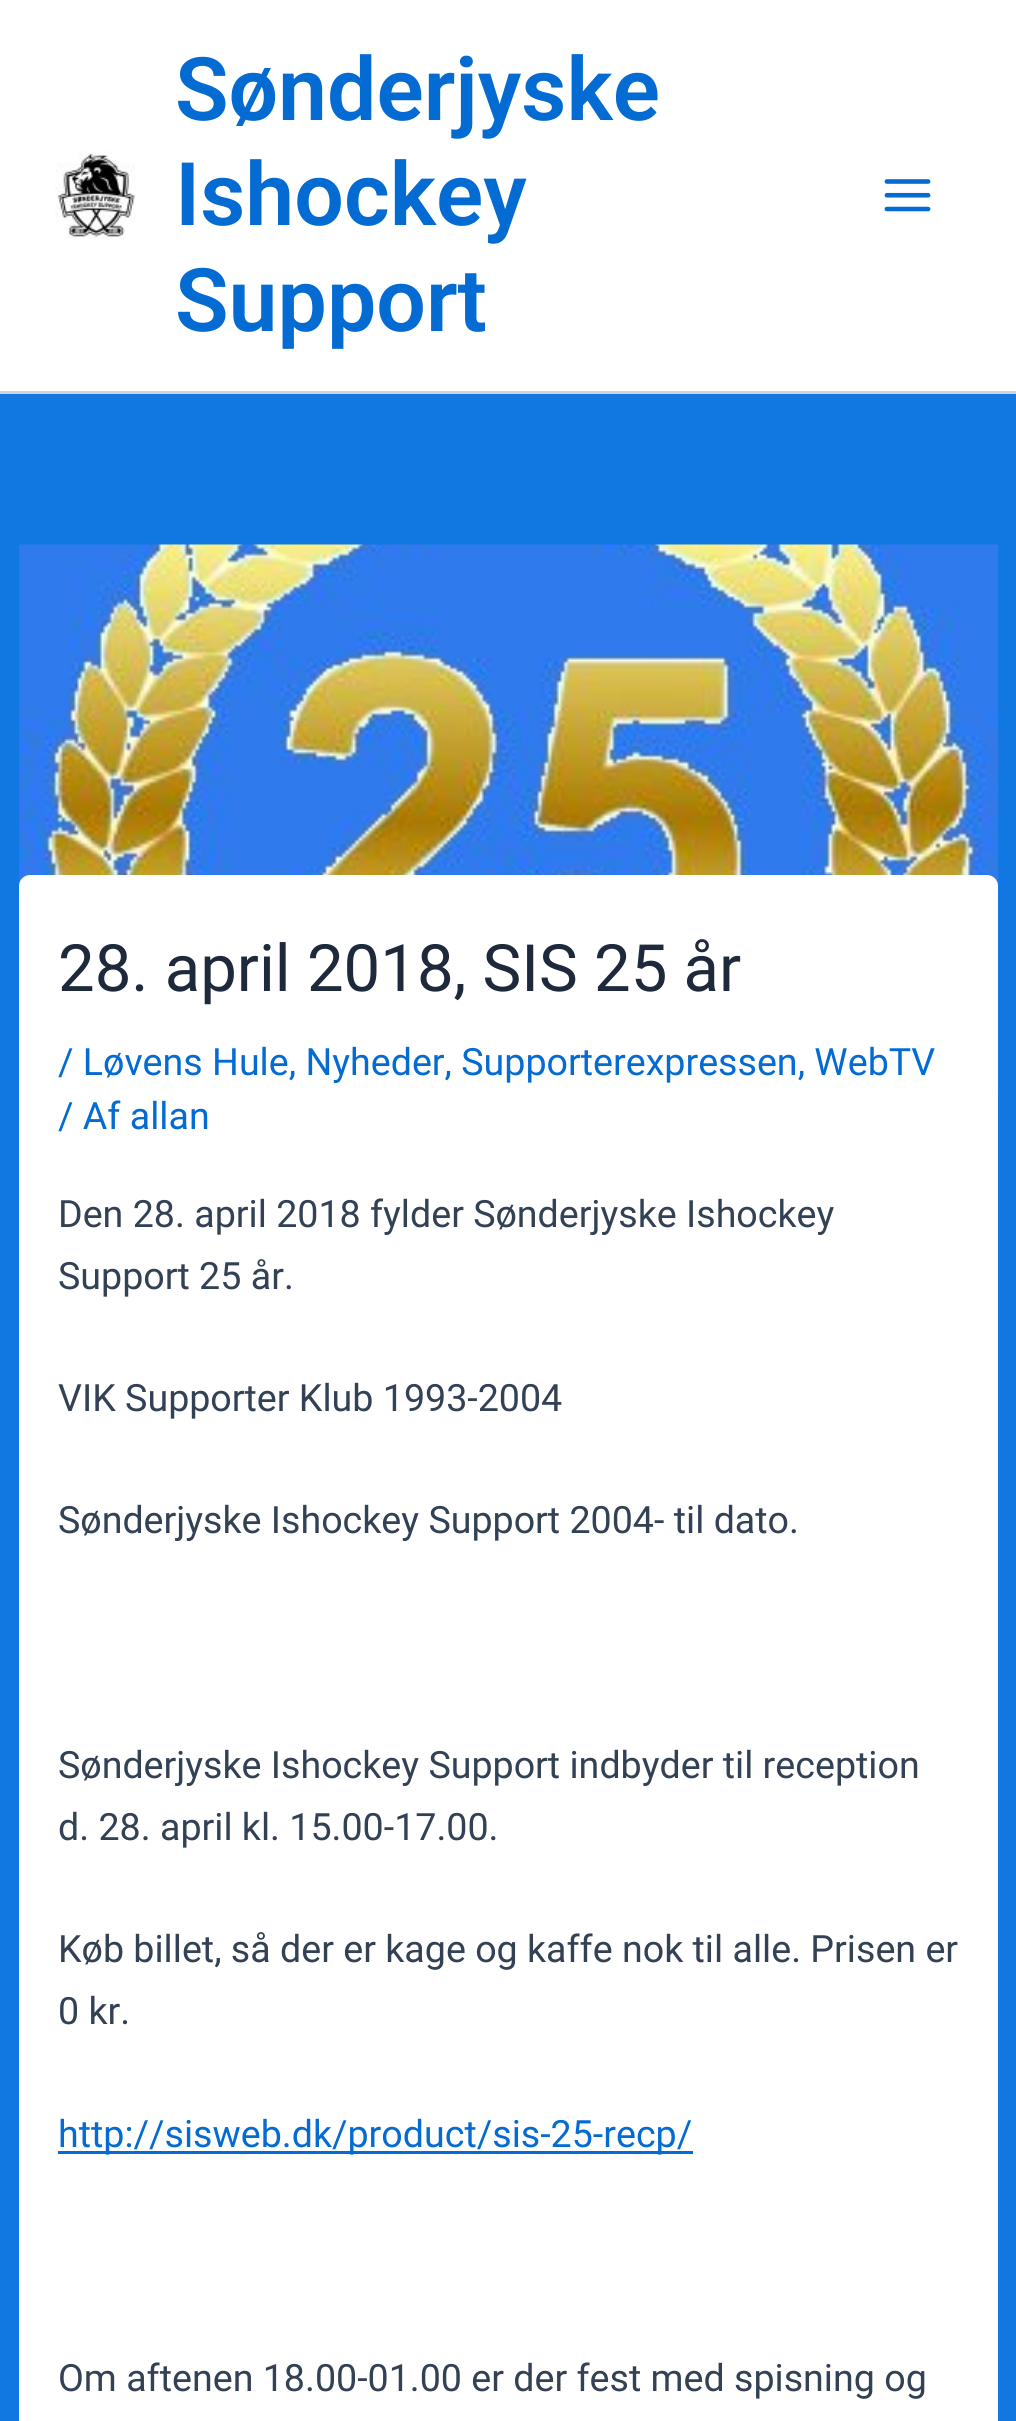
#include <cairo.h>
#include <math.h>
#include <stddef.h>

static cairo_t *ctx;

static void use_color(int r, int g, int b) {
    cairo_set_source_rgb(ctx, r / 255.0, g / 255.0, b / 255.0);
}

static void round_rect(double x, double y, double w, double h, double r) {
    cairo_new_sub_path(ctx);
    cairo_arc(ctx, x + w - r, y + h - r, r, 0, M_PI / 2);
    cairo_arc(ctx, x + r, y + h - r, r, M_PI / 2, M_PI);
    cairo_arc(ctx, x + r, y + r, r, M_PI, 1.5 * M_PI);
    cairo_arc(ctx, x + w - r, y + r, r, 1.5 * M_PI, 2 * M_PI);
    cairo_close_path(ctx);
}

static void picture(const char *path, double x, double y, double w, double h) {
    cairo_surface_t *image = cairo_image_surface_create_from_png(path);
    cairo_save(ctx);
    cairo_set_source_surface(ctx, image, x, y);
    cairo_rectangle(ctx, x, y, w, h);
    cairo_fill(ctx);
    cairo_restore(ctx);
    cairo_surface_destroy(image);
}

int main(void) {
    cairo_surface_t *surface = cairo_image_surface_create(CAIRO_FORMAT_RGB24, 1016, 2421);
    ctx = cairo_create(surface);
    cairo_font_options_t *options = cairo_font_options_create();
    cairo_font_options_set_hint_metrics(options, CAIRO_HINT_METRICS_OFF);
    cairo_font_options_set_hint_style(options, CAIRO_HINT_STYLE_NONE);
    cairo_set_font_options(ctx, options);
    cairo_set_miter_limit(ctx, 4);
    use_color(16, 120, 224);
    cairo_paint(ctx);
    use_color(255, 255, 255);
    cairo_rectangle(ctx, 0, 0, 1016, 391);
    cairo_fill(ctx);
    use_color(209, 213, 219);
    cairo_rectangle(ctx, 0, 391, 1016, 3);
    cairo_fill(ctx);
    picture("img1.png", 55, 151, 81, 88);
    cairo_select_font_face(ctx, "Roboto SemiBold", CAIRO_FONT_SLANT_NORMAL, CAIRO_FONT_WEIGHT_NORMAL);
    cairo_set_font_size(ctx, 87.75);
    use_color(4, 107, 210);
    cairo_move_to(ctx, 175, 120);
    cairo_show_text(ctx, "Sønderjyske");
    cairo_move_to(ctx, 175, 225);
    cairo_show_text(ctx, "Ishockey");
    cairo_move_to(ctx, 175, 331);
    cairo_show_text(ctx, "Support");
    picture("img2.png", 884, 179, 47, 33);
    picture("img3.png", 19, 544, 980, 551);
    use_color(255, 255, 255);
    round_rect(19, 875, 979, 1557, 11);
    cairo_fill(ctx);
    cairo_select_font_face(ctx, "Roboto", CAIRO_FONT_SLANT_NORMAL, CAIRO_FONT_WEIGHT_NORMAL);
    cairo_set_font_size(ctx, 65.25);
    use_color(30, 41, 59);
    cairo_move_to(ctx, 58, 991);
    cairo_show_text(ctx, "28. april 2018, SIS 25 år");
    cairo_set_font_size(ctx, 37.6);
    use_color(4, 107, 210);
    cairo_move_to(ctx, 58, 1075);
    cairo_show_text(ctx, "/ Løvens Hule, Nyheder, Supporterexpressen, WebTV");
    cairo_move_to(ctx, 58, 1129);
    cairo_show_text(ctx, "/ Af allan");
    use_color(51, 65, 85);
    cairo_move_to(ctx, 58, 1227);
    cairo_show_text(ctx, "Den 28. april 2018 fylder Sønderjyske Ishockey");
    cairo_move_to(ctx, 58, 1289);
    cairo_show_text(ctx, "Support 25 år.");
    cairo_move_to(ctx, 58, 1411);
    cairo_show_text(ctx, "VIK Supporter Klub 1993-2004");
    cairo_move_to(ctx, 58, 1533);
    cairo_show_text(ctx, "Sønderjyske Ishockey Support 2004- til dato.");
    cairo_move_to(ctx, 58, 1778);
    cairo_show_text(ctx, "Sønderjyske Ishockey Support indbyder til reception");
    cairo_move_to(ctx, 58, 1840);
    cairo_show_text(ctx, "d. 28. april kl. 15.00-17.00.");
    cairo_move_to(ctx, 58, 1962);
    cairo_show_text(ctx, "Køb billet, så der er kage og kaffe nok til alle. Prisen er");
    cairo_move_to(ctx, 58, 2024);
    cairo_show_text(ctx, "0 kr.");
    use_color(4, 107, 210);
    cairo_rectangle(ctx, 58, 2151, 635, 3);
    cairo_fill(ctx);
    cairo_move_to(ctx, 58, 2147);
    cairo_show_text(ctx, "http://sisweb.dk/product/sis-25-recp/");
    use_color(51, 65, 85);
    cairo_move_to(ctx, 58, 2391);
    cairo_show_text(ctx, "Om aftenen 18.00-01.00 er der fest med spisning og");
    cairo_surface_write_to_png(surface, "result.png");
    cairo_font_options_destroy(options);
    cairo_destroy(ctx);
    cairo_surface_destroy(surface);
    return 0;
}
